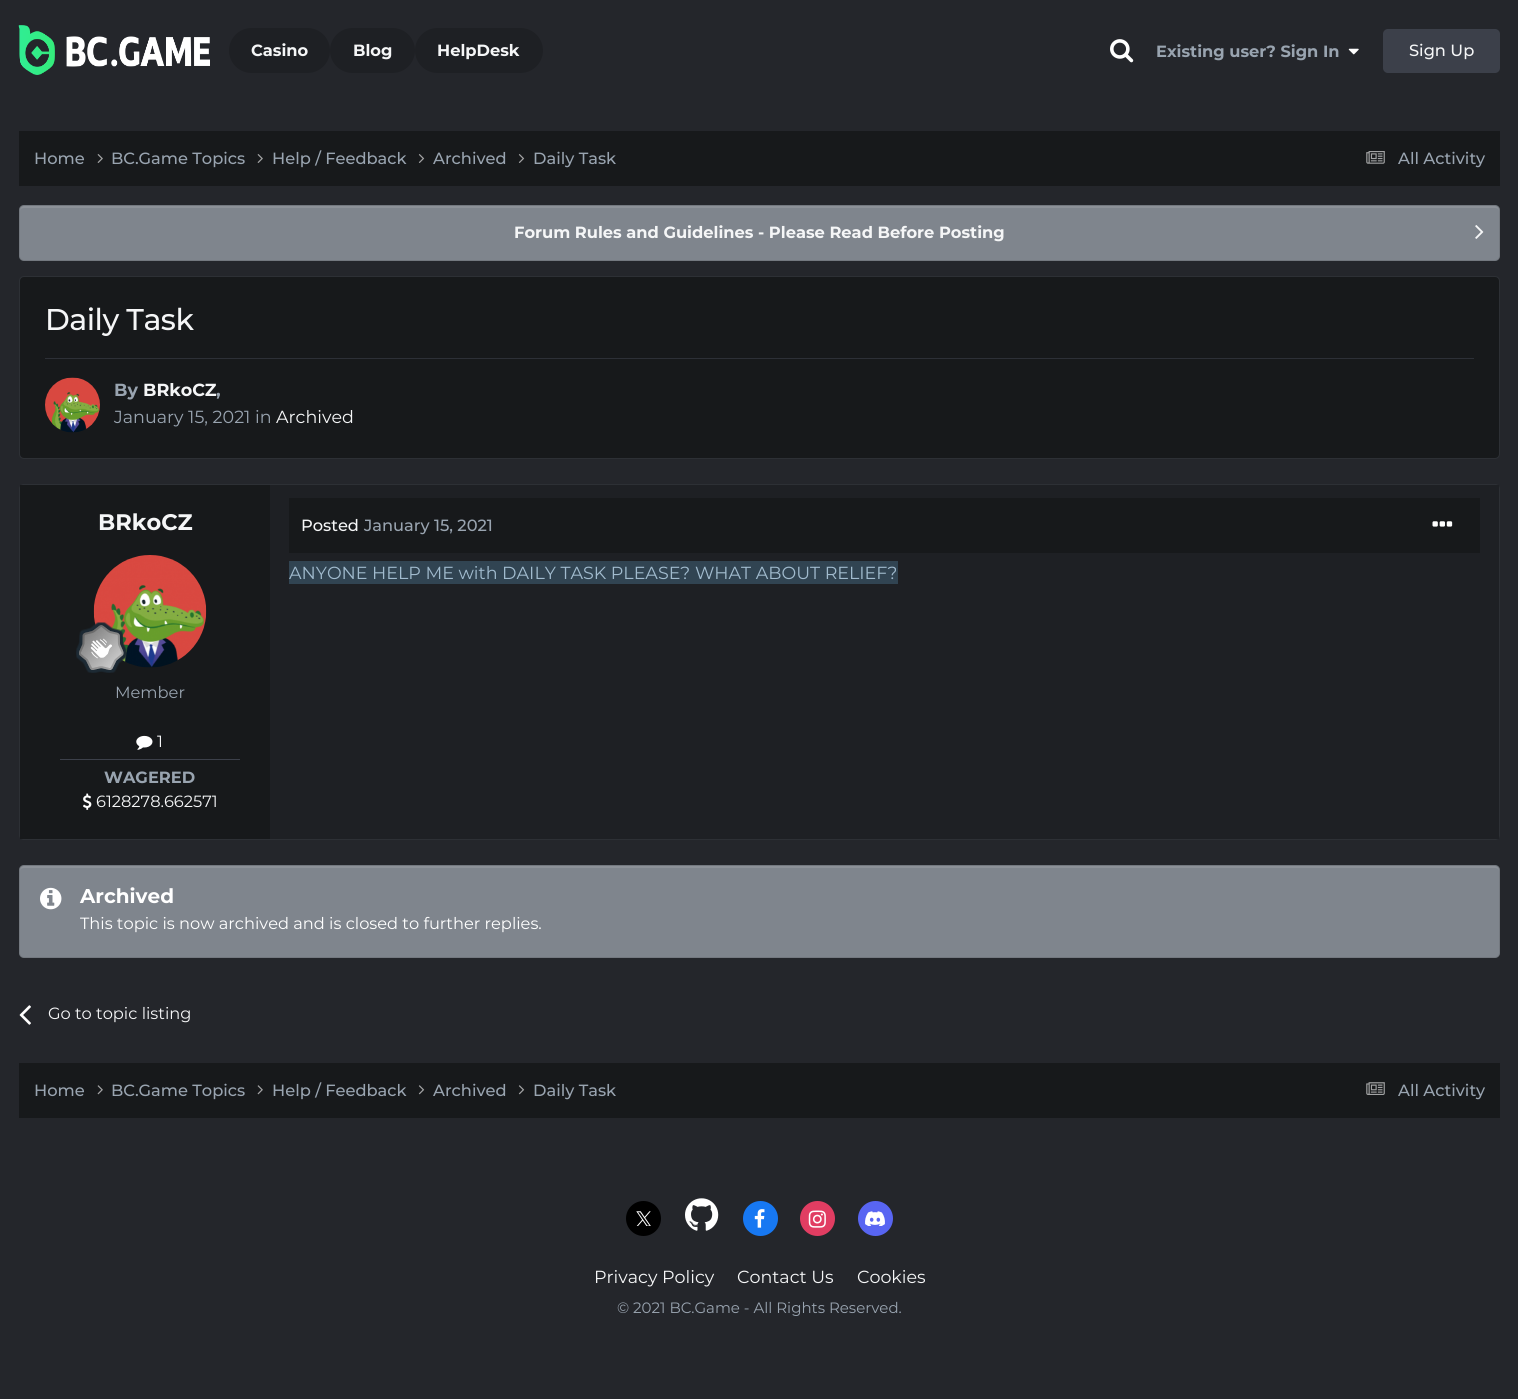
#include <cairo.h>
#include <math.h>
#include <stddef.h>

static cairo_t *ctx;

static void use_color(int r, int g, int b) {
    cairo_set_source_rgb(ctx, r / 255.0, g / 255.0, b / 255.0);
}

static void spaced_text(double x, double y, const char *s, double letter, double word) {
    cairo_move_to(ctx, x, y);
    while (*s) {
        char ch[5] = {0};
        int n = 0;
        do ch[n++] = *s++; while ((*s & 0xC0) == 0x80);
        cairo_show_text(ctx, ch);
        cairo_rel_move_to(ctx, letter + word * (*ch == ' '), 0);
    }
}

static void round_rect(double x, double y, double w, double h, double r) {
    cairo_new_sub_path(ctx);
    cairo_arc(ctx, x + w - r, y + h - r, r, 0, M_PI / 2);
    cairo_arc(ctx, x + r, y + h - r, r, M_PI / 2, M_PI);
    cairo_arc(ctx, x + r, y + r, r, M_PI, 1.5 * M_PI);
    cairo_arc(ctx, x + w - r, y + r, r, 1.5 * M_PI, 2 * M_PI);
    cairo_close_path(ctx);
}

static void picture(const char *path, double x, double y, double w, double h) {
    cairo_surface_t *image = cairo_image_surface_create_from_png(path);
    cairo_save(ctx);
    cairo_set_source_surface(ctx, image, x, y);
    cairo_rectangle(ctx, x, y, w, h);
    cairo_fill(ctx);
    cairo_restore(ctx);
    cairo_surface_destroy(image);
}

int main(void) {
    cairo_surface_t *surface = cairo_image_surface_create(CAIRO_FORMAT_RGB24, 1518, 1399);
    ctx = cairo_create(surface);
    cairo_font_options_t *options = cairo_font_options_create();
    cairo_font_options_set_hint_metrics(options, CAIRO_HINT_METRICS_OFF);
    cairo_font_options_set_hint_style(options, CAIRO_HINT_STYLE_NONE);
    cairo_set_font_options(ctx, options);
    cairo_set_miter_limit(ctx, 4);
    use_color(36, 38, 43);
    cairo_paint(ctx);
    picture("img1.png", 18, 25, 192, 50);
    use_color(30, 32, 36);
    round_rect(229, 28, 101, 45, 22.5);
    cairo_fill(ctx);
    cairo_select_font_face(ctx, "Montserrat", CAIRO_FONT_SLANT_NORMAL, CAIRO_FONT_WEIGHT_BOLD);
    cairo_set_font_size(ctx, 16.25);
    use_color(245, 246, 247);
    cairo_move_to(ctx, 251, 56);
    cairo_show_text(ctx, "Casino");
    use_color(30, 32, 36);
    round_rect(330, 28, 85, 45, 22.5);
    cairo_fill(ctx);
    use_color(245, 246, 247);
    cairo_move_to(ctx, 353, 56);
    cairo_show_text(ctx, "Blog");
    use_color(30, 32, 36);
    round_rect(415, 28, 128, 45, 22.5);
    cairo_fill(ctx);
    use_color(245, 246, 247);
    cairo_move_to(ctx, 437, 56);
    cairo_show_text(ctx, "HelpDesk");
    picture("img2.png", 1110, 39, 24, 24);
    use_color(153, 164, 176);
    cairo_move_to(ctx, 1156, 57);
    cairo_show_text(ctx, "Existing user? Sign In");
    picture("img3.png", 1348, 48, 11, 7);
    use_color(60, 64, 74);
    round_rect(1383, 29, 117, 44, 5);
    cairo_fill(ctx);
    cairo_select_font_face(ctx, "Montserrat Medium", CAIRO_FONT_SLANT_NORMAL, CAIRO_FONT_WEIGHT_NORMAL);
    use_color(245, 246, 247);
    cairo_move_to(ctx, 1409, 56);
    cairo_show_text(ctx, "Sign Up");
    use_color(23, 25, 27);
    cairo_rectangle(ctx, 19, 131, 1481, 55);
    cairo_fill(ctx);
    use_color(153, 164, 176);
    cairo_move_to(ctx, 34, 164);
    cairo_show_text(ctx, "Home");
    picture("img4.png", 97, 154, 6, 9);
    cairo_move_to(ctx, 111, 164);
    cairo_show_text(ctx, "BC.Game Topics");
    picture("img4.png", 257, 154, 6, 9);
    cairo_move_to(ctx, 272, 164);
    cairo_show_text(ctx, "Help / Feedback");
    picture("img5.png", 418, 154, 7, 9);
    cairo_move_to(ctx, 433, 164);
    cairo_show_text(ctx, "Archived");
    picture("img5.png", 518, 154, 7, 9);
    cairo_move_to(ctx, 533, 164);
    cairo_show_text(ctx, "Daily Task");
    picture("img6.png", 1366, 151, 19, 13);
    cairo_move_to(ctx, 1398, 164);
    cairo_show_text(ctx, "All Activity");
    use_color(127, 133, 141);
    round_rect(19, 205, 1481, 56, 5);
    cairo_fill(ctx);
    use_color(140, 145, 152);
    cairo_new_path(ctx);
    cairo_move_to(ctx, 24, 208);
    cairo_line_to(ctx, 1495, 208);
    cairo_curve_to(ctx, 1497, 208, 1499, 209, 1499, 211);
    cairo_line_to(ctx, 1499, 210);
    cairo_curve_to(ctx, 1499, 208, 1497, 206, 1495, 206);
    cairo_line_to(ctx, 24, 206);
    cairo_curve_to(ctx, 22, 206, 20, 208, 20, 210);
    cairo_line_to(ctx, 20, 211);
    cairo_curve_to(ctx, 20, 209, 22, 208, 24, 208);
    cairo_close_path(ctx);
    cairo_fill(ctx);
    round_rect(19.5, 205.5, 1480, 55, 4.5);
    cairo_set_source_rgba(ctx, 0, 0, 0, 0.1);
    cairo_set_line_width(ctx, 1);
    cairo_stroke(ctx);
    cairo_select_font_face(ctx, "Montserrat", CAIRO_FONT_SLANT_NORMAL, CAIRO_FONT_WEIGHT_BOLD);
    use_color(245, 246, 247);
    cairo_move_to(ctx, 514, 238);
    cairo_show_text(ctx, "Forum Rules and Guidelines - Please Read Before Posting");
    picture("img7.png", 1475, 225, 9, 14);
    use_color(23, 25, 27);
    round_rect(19.5, 276.5, 1480, 182, 4.5);
    cairo_fill_preserve(ctx);
    use_color(45, 48, 53);
    cairo_stroke(ctx);
    cairo_select_font_face(ctx, "Montserrat Medium", CAIRO_FONT_SLANT_NORMAL, CAIRO_FONT_WEIGHT_NORMAL);
    cairo_set_font_size(ctx, 30);
    use_color(245, 246, 247);
    spaced_text(45, 330, "Daily Task", -0.5, 0);
    use_color(45, 48, 55);
    cairo_rectangle(ctx, 45, 358, 1429, 1);
    cairo_fill(ctx);
    picture("img8.png", 45, 377, 55, 56);
    cairo_select_font_face(ctx, "Montserrat", CAIRO_FONT_SLANT_NORMAL, CAIRO_FONT_WEIGHT_BOLD);
    cairo_set_font_size(ctx, 17.5);
    use_color(153, 164, 176);
    cairo_move_to(ctx, 114, 396);
    cairo_show_text(ctx, "By");
    use_color(245, 246, 247);
    cairo_move_to(ctx, 143, 396);
    cairo_show_text(ctx, "BRkoCZ");
    use_color(153, 164, 176);
    cairo_move_to(ctx, 216, 396);
    cairo_show_text(ctx, ",");
    cairo_select_font_face(ctx, "Montserrat", CAIRO_FONT_SLANT_NORMAL, CAIRO_FONT_WEIGHT_NORMAL);
    cairo_move_to(ctx, 114, 423);
    cairo_show_text(ctx, "January 15, 2021 in");
    use_color(245, 246, 247);
    cairo_move_to(ctx, 276, 423);
    cairo_show_text(ctx, "Archived");
    round_rect(19.5, 484.5, 1480, 355, 4.5);
    use_color(45, 48, 53);
    cairo_stroke(ctx);
    use_color(23, 25, 27);
    cairo_rectangle(ctx, 20, 485, 250, 354);
    cairo_fill(ctx);
    cairo_select_font_face(ctx, "Montserrat", CAIRO_FONT_SLANT_NORMAL, CAIRO_FONT_WEIGHT_BOLD);
    cairo_set_font_size(ctx, 22.5);
    use_color(245, 246, 247);
    cairo_move_to(ctx, 98, 530);
    cairo_show_text(ctx, "BRkoCZ");
    picture("img9.png", 93, 555, 114, 113);
    picture("img10.png", 76, 622, 51, 51);
    cairo_select_font_face(ctx, "Montserrat", CAIRO_FONT_SLANT_NORMAL, CAIRO_FONT_WEIGHT_NORMAL);
    cairo_set_font_size(ctx, 16.25);
    use_color(153, 164, 176);
    cairo_move_to(ctx, 115, 698);
    cairo_show_text(ctx, "Member");
    picture("img11.png", 136, 735, 17, 15);
    use_color(245, 246, 247);
    cairo_move_to(ctx, 157, 747);
    cairo_show_text(ctx, "1");
    use_color(60, 64, 74);
    cairo_rectangle(ctx, 60, 759, 180, 1);
    cairo_fill(ctx);
    cairo_select_font_face(ctx, "Montserrat", CAIRO_FONT_SLANT_NORMAL, CAIRO_FONT_WEIGHT_BOLD);
    use_color(153, 164, 176);
    cairo_move_to(ctx, 104, 783);
    cairo_show_text(ctx, "WAGERED");
    picture("img12.png", 83, 793, 9, 17);
    cairo_select_font_face(ctx, "Montserrat", CAIRO_FONT_SLANT_NORMAL, CAIRO_FONT_WEIGHT_NORMAL);
    use_color(245, 246, 247);
    cairo_move_to(ctx, 96, 807);
    cairo_show_text(ctx, "6128278.662571");
    use_color(30, 32, 36);
    cairo_rectangle(ctx, 270, 485, 1229, 354);
    cairo_fill(ctx);
    use_color(23, 25, 27);
    cairo_rectangle(ctx, 289, 498, 1191, 55);
    cairo_fill(ctx);
    cairo_select_font_face(ctx, "Montserrat Medium", CAIRO_FONT_SLANT_NORMAL, CAIRO_FONT_WEIGHT_NORMAL);
    use_color(245, 246, 247);
    cairo_move_to(ctx, 301, 531);
    cairo_show_text(ctx, "Posted");
    use_color(153, 164, 176);
    cairo_move_to(ctx, 364, 531);
    cairo_show_text(ctx, "January 15, 2021");
    picture("img13.png", 1432, 521, 21, 6);
    use_color(49, 68, 82);
    cairo_rectangle(ctx, 289, 561, 609, 23);
    cairo_fill(ctx);
    cairo_select_font_face(ctx, "Montserrat", CAIRO_FONT_SLANT_NORMAL, CAIRO_FONT_WEIGHT_NORMAL);
    cairo_set_font_size(ctx, 17.5);
    use_color(161, 187, 206);
    cairo_move_to(ctx, 289, 579);
    cairo_show_text(ctx, "ANYONE HELP ME with DAILY TASK PLEASE? WHAT ABOUT RELIEF?");
    use_color(127, 133, 141);
    round_rect(19, 865, 1481, 93, 5);
    cairo_fill(ctx);
    use_color(140, 145, 152);
    cairo_new_path(ctx);
    cairo_move_to(ctx, 24, 868);
    cairo_line_to(ctx, 1495, 868);
    cairo_curve_to(ctx, 1497, 868, 1499, 869, 1499, 871);
    cairo_line_to(ctx, 1499, 870);
    cairo_curve_to(ctx, 1499, 868, 1497, 866, 1495, 866);
    cairo_line_to(ctx, 24, 866);
    cairo_curve_to(ctx, 22, 866, 20, 868, 20, 870);
    cairo_line_to(ctx, 20, 871);
    cairo_curve_to(ctx, 20, 869, 22, 868, 24, 868);
    cairo_close_path(ctx);
    cairo_fill(ctx);
    round_rect(19.5, 865.5, 1480, 92, 4.5);
    cairo_set_source_rgba(ctx, 0, 0, 0, 0.1);
    cairo_stroke(ctx);
    picture("img14.png", 40, 887, 22, 23);
    cairo_select_font_face(ctx, "Montserrat", CAIRO_FONT_SLANT_NORMAL, CAIRO_FONT_WEIGHT_BOLD);
    cairo_set_font_size(ctx, 20);
    use_color(255, 255, 255);
    cairo_move_to(ctx, 80, 903);
    cairo_show_text(ctx, "Archived");
    cairo_select_font_face(ctx, "Montserrat", CAIRO_FONT_SLANT_NORMAL, CAIRO_FONT_WEIGHT_NORMAL);
    cairo_set_font_size(ctx, 16.25);
    cairo_move_to(ctx, 80, 929);
    cairo_show_text(ctx, "This topic is now archived and is closed to further replies.");
    picture("img15.png", 19, 1005, 12, 20);
    use_color(245, 246, 247);
    cairo_move_to(ctx, 48, 1019);
    cairo_show_text(ctx, "Go to topic listing");
    use_color(23, 25, 27);
    cairo_rectangle(ctx, 19, 1063, 1481, 55);
    cairo_fill(ctx);
    cairo_select_font_face(ctx, "Montserrat Medium", CAIRO_FONT_SLANT_NORMAL, CAIRO_FONT_WEIGHT_NORMAL);
    use_color(153, 164, 176);
    cairo_move_to(ctx, 34, 1096);
    cairo_show_text(ctx, "Home");
    picture("img16.png", 97, 1085, 6, 10);
    cairo_move_to(ctx, 111, 1096);
    cairo_show_text(ctx, "BC.Game Topics");
    picture("img16.png", 257, 1085, 6, 10);
    cairo_move_to(ctx, 272, 1096);
    cairo_show_text(ctx, "Help / Feedback");
    picture("img17.png", 418, 1085, 7, 10);
    cairo_move_to(ctx, 433, 1096);
    cairo_show_text(ctx, "Archived");
    picture("img17.png", 518, 1085, 7, 10);
    cairo_move_to(ctx, 533, 1096);
    cairo_show_text(ctx, "Daily Task");
    picture("img18.png", 1366, 1082, 19, 13);
    cairo_move_to(ctx, 1398, 1096);
    cairo_show_text(ctx, "All Activity");
    use_color(0, 0, 0);
    cairo_new_path(ctx);
    cairo_arc(ctx, 643.5, 1218.5, 17.5, 0, 2 * M_PI);
    cairo_fill(ctx);
    picture("img19.png", 636, 1211, 15, 15);
    picture("img20.png", 685, 1198, 34, 33);
    use_color(23, 120, 242);
    cairo_arc(ctx, 760.5, 1218.5, 17.5, 0, 2 * M_PI);
    cairo_fill(ctx);
    picture("img21.png", 754, 1209, 11, 19);
    use_color(225, 61, 98);
    cairo_arc(ctx, 817.5, 1218.5, 17.5, 0, 2 * M_PI);
    cairo_fill(ctx);
    picture("img22.png", 808, 1210, 18, 18);
    use_color(88, 101, 242);
    cairo_arc(ctx, 875.5, 1218.5, 17.5, 0, 2 * M_PI);
    cairo_fill(ctx);
    picture("img23.png", 865, 1211, 20, 15);
    cairo_select_font_face(ctx, "Montserrat", CAIRO_FONT_SLANT_NORMAL, CAIRO_FONT_WEIGHT_NORMAL);
    cairo_set_font_size(ctx, 17.5);
    use_color(245, 246, 247);
    cairo_move_to(ctx, 594, 1283);
    cairo_show_text(ctx, "Privacy Policy");
    cairo_move_to(ctx, 737, 1283);
    cairo_show_text(ctx, "Contact Us");
    cairo_move_to(ctx, 857, 1283);
    cairo_show_text(ctx, "Cookies");
    cairo_set_font_size(ctx, 15);
    use_color(153, 164, 176);
    cairo_move_to(ctx, 617, 1313);
    cairo_show_text(ctx, "© 2021 BC.Game - All Rights Reserved.");
    cairo_surface_write_to_png(surface, "result.png");
    cairo_font_options_destroy(options);
    cairo_destroy(ctx);
    cairo_surface_destroy(surface);
    return 0;
}
